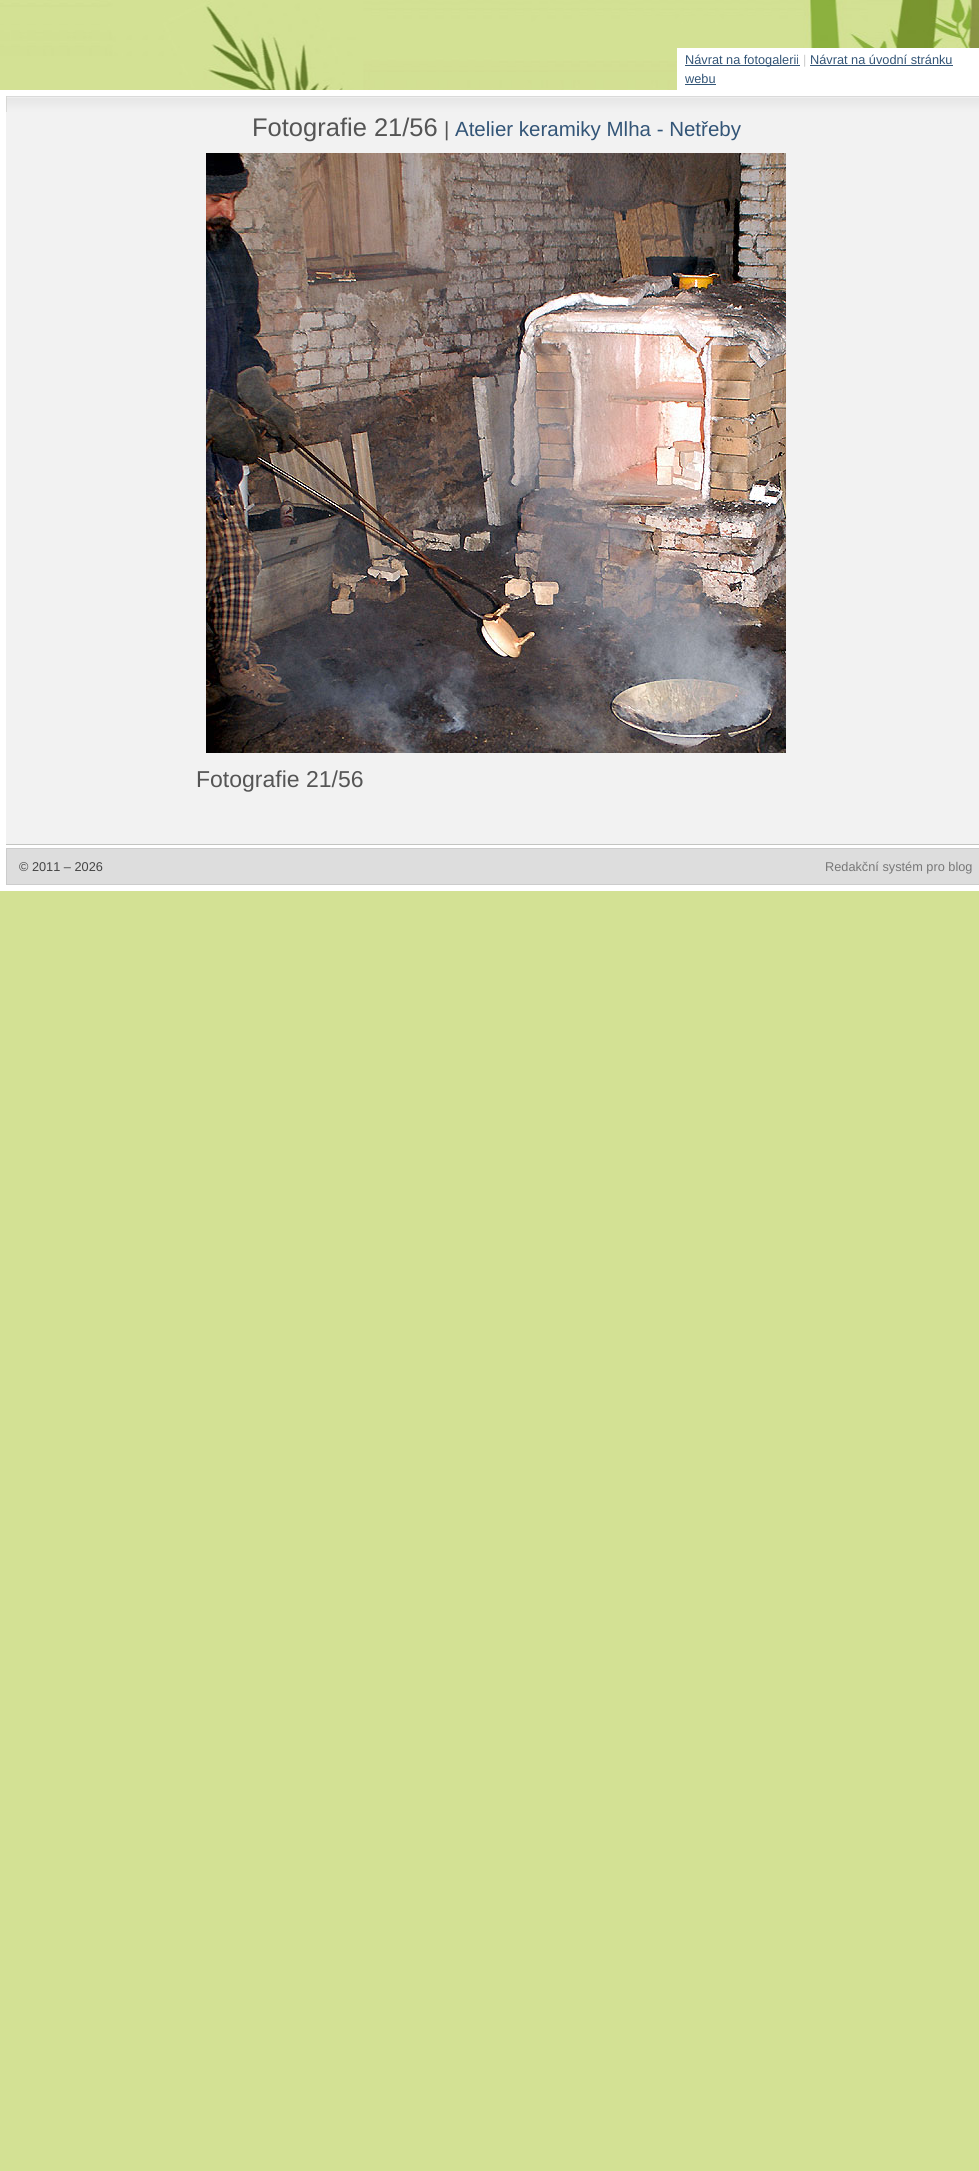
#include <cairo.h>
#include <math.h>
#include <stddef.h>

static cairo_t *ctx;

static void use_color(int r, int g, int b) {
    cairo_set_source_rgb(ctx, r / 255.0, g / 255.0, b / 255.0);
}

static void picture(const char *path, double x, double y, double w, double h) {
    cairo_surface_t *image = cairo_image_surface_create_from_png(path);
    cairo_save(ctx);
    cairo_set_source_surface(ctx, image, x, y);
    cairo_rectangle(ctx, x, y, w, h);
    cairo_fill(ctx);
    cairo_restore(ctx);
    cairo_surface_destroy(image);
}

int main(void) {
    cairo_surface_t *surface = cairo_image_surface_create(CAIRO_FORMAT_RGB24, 979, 2171);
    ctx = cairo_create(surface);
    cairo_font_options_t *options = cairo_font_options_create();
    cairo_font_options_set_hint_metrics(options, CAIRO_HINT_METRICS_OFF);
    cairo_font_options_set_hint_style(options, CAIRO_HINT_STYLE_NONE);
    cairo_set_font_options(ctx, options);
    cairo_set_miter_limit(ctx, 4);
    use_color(211, 225, 148);
    cairo_paint(ctx);
    picture("img1.png", 0, 0, 979, 90);
    use_color(255, 255, 255);
    cairo_rectangle(ctx, 677, 48, 302, 42);
    cairo_fill(ctx);
    use_color(51, 85, 119);
    cairo_rectangle(ctx, 685, 65, 115, 1);
    cairo_fill(ctx);
    cairo_select_font_face(ctx, "Liberation Sans", CAIRO_FONT_SLANT_NORMAL, CAIRO_FONT_WEIGHT_NORMAL);
    cairo_set_font_size(ctx, 12.75);
    cairo_move_to(ctx, 685, 64);
    cairo_show_text(ctx, "Návrat na fotogalerii");
    use_color(204, 204, 204);
    cairo_move_to(ctx, 803, 64);
    cairo_show_text(ctx, "|");
    use_color(51, 85, 119);
    cairo_move_to(ctx, 810, 64);
    cairo_show_text(ctx, "Návrat na úvodní stránku");
    cairo_rectangle(ctx, 810, 65, 143, 1);
    cairo_fill(ctx);
    cairo_move_to(ctx, 685, 83);
    cairo_show_text(ctx, "webu");
    cairo_rectangle(ctx, 685, 84, 31, 1);
    cairo_fill(ctx);
    use_color(255, 255, 255);
    cairo_rectangle(ctx, 0, 90, 979, 801);
    cairo_fill(ctx);
    use_color(242, 242, 242);
    cairo_rectangle(ctx, 6, 112, 973, 732);
    cairo_fill(ctx);
    use_color(195, 196, 193);
    cairo_rectangle(ctx, 6, 844, 973, 1);
    cairo_fill(ctx);
    picture("img2.png", 6, 96, 973, 16);
    cairo_set_font_size(ctx, 25.5);
    use_color(85, 85, 85);
    cairo_move_to(ctx, 252, 136);
    cairo_show_text(ctx, "Fotografie 21/56");
    cairo_set_font_size(ctx, 20.5);
    cairo_move_to(ctx, 444, 136);
    cairo_show_text(ctx, "|");
    use_color(51, 85, 119);
    cairo_move_to(ctx, 455, 136);
    cairo_show_text(ctx, "Atelier keramiky Mlha - Netřeby");
    picture("img3.png", 206, 153, 580, 600);
    cairo_set_font_size(ctx, 23);
    use_color(85, 85, 85);
    cairo_move_to(ctx, 196, 787);
    cairo_show_text(ctx, "Fotografie 21/56");
    use_color(221, 221, 221);
    cairo_rectangle(ctx, 6.5, 848.5, 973, 36);
    cairo_fill_preserve(ctx);
    use_color(204, 204, 204);
    cairo_set_line_width(ctx, 1);
    cairo_stroke(ctx);
    cairo_set_font_size(ctx, 12.75);
    use_color(68, 68, 68);
    cairo_move_to(ctx, 19, 871);
    cairo_show_text(ctx, "© 2011 – 2026");
    use_color(119, 119, 119);
    cairo_move_to(ctx, 825, 871);
    cairo_show_text(ctx, "Redakční systém pro blog");
    cairo_surface_write_to_png(surface, "result.png");
    cairo_font_options_destroy(options);
    cairo_destroy(ctx);
    cairo_surface_destroy(surface);
    return 0;
}
